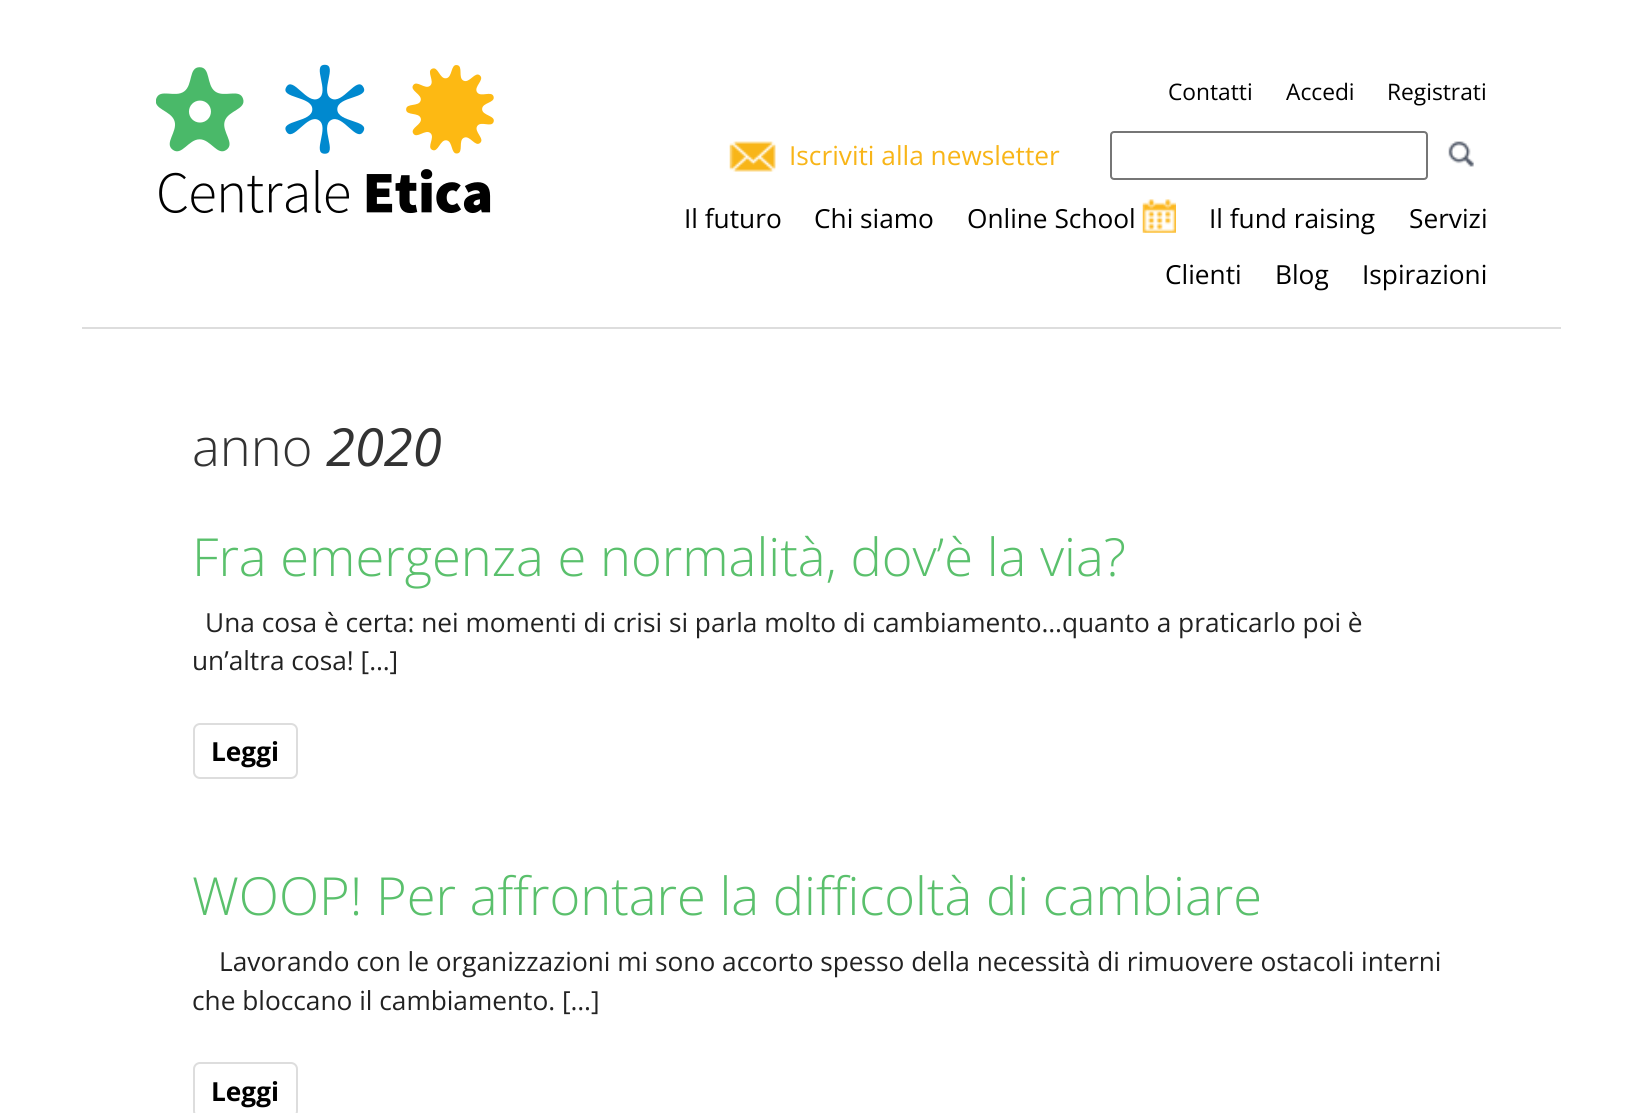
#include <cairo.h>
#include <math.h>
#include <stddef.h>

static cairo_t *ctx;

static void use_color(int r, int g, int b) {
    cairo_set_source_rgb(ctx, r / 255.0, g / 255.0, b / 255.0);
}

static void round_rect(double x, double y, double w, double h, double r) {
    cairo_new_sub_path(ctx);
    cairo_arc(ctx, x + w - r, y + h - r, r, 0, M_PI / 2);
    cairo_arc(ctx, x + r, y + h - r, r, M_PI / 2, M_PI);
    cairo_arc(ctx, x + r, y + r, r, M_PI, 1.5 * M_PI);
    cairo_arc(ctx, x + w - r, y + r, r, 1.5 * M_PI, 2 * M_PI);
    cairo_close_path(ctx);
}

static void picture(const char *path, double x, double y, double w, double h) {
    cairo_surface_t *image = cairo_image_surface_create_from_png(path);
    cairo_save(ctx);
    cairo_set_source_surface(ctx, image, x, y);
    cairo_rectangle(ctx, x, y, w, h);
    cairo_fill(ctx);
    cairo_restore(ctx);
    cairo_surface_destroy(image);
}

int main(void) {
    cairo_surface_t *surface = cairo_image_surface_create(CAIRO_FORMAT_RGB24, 1643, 1113);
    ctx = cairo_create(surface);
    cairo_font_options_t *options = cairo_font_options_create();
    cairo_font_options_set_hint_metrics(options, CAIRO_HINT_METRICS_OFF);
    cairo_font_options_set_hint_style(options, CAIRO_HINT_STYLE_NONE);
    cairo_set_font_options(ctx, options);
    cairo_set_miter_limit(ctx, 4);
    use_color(255, 255, 255);
    cairo_paint(ctx);
    use_color(221, 221, 221);
    cairo_rectangle(ctx, 82, 327, 1479, 2);
    cairo_fill(ctx);
    picture("img1.png", 156, 64, 338, 150);
    cairo_select_font_face(ctx, "Open Sans", CAIRO_FONT_SLANT_NORMAL, CAIRO_FONT_WEIGHT_NORMAL);
    cairo_set_font_size(ctx, 22.75);
    use_color(0, 0, 0);
    cairo_move_to(ctx, 1168, 100);
    cairo_show_text(ctx, "Contatti");
    cairo_move_to(ctx, 1286, 100);
    cairo_show_text(ctx, "Accedi");
    cairo_move_to(ctx, 1387, 100);
    cairo_show_text(ctx, "Registrati");
    picture("img2.png", 729, 141, 47, 31);
    cairo_set_font_size(ctx, 26.25);
    use_color(248, 181, 24);
    cairo_move_to(ctx, 789, 165);
    cairo_show_text(ctx, "Iscriviti alla newsletter");
    round_rect(1111, 132, 316, 47, 3);
    use_color(118, 118, 118);
    cairo_stroke(ctx);
    picture("img3.png", 1448, 141, 26, 26);
    use_color(0, 0, 0);
    cairo_move_to(ctx, 684, 228);
    cairo_show_text(ctx, "Il futuro");
    cairo_move_to(ctx, 814, 228);
    cairo_show_text(ctx, "Chi siamo");
    picture("img4.png", 1142, 199, 34, 34);
    cairo_move_to(ctx, 967, 228);
    cairo_show_text(ctx, "Online School");
    cairo_move_to(ctx, 1209, 228);
    cairo_show_text(ctx, "Il fund raising");
    cairo_move_to(ctx, 1409, 228);
    cairo_show_text(ctx, "Servizi");
    cairo_move_to(ctx, 1165, 284);
    cairo_show_text(ctx, "Clienti");
    cairo_move_to(ctx, 1275, 284);
    cairo_show_text(ctx, "Blog");
    cairo_move_to(ctx, 1362, 284);
    cairo_show_text(ctx, "Ispirazioni");
    cairo_select_font_face(ctx, "Open Sans Light", CAIRO_FONT_SLANT_NORMAL, CAIRO_FONT_WEIGHT_NORMAL);
    cairo_set_font_size(ctx, 52.5);
    use_color(51, 51, 51);
    cairo_move_to(ctx, 192, 466);
    cairo_show_text(ctx, "anno");
    cairo_select_font_face(ctx, "Open Sans", CAIRO_FONT_SLANT_ITALIC, CAIRO_FONT_WEIGHT_NORMAL);
    cairo_move_to(ctx, 326, 466);
    cairo_show_text(ctx, "2020");
    cairo_select_font_face(ctx, "Open Sans Light", CAIRO_FONT_SLANT_NORMAL, CAIRO_FONT_WEIGHT_NORMAL);
    use_color(90, 192, 108);
    cairo_move_to(ctx, 192, 576);
    cairo_show_text(ctx, "Fra emergenza e normalità, dov’è la via?");
    cairo_select_font_face(ctx, "Open Sans", CAIRO_FONT_SLANT_NORMAL, CAIRO_FONT_WEIGHT_NORMAL);
    cairo_set_font_size(ctx, 26.25);
    use_color(34, 34, 34);
    cairo_move_to(ctx, 205, 632);
    cairo_show_text(ctx, "Una cosa è certa: nei momenti di crisi si parla molto di cambiamento…quanto a praticarlo poi è");
    cairo_move_to(ctx, 192, 670);
    cairo_show_text(ctx, "un’altra cosa! […]");
    round_rect(194, 724, 103, 54, 6);
    use_color(221, 221, 221);
    cairo_stroke(ctx);
    cairo_select_font_face(ctx, "Open Sans", CAIRO_FONT_SLANT_NORMAL, CAIRO_FONT_WEIGHT_BOLD);
    use_color(0, 0, 0);
    cairo_move_to(ctx, 211, 761);
    cairo_show_text(ctx, "Leggi");
    cairo_select_font_face(ctx, "Open Sans Light", CAIRO_FONT_SLANT_NORMAL, CAIRO_FONT_WEIGHT_NORMAL);
    cairo_set_font_size(ctx, 52.5);
    use_color(90, 192, 108);
    cairo_move_to(ctx, 192, 915);
    cairo_show_text(ctx, "WOOP! Per affrontare la difficoltà di cambiare");
    cairo_select_font_face(ctx, "Open Sans", CAIRO_FONT_SLANT_NORMAL, CAIRO_FONT_WEIGHT_NORMAL);
    cairo_set_font_size(ctx, 26.25);
    use_color(34, 34, 34);
    cairo_move_to(ctx, 219, 971);
    cairo_show_text(ctx, "Lavorando con le organizzazioni mi sono accorto spesso della necessità di rimuovere ostacoli interni");
    cairo_move_to(ctx, 192, 1010);
    cairo_show_text(ctx, "che bloccano il cambiamento. […]");
    round_rect(194, 1063, 103, 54, 6);
    use_color(221, 221, 221);
    cairo_stroke(ctx);
    cairo_select_font_face(ctx, "Open Sans", CAIRO_FONT_SLANT_NORMAL, CAIRO_FONT_WEIGHT_BOLD);
    use_color(0, 0, 0);
    cairo_move_to(ctx, 211, 1101);
    cairo_show_text(ctx, "Leggi");
    cairo_surface_write_to_png(surface, "result.png");
    cairo_font_options_destroy(options);
    cairo_destroy(ctx);
    cairo_surface_destroy(surface);
    return 0;
}
